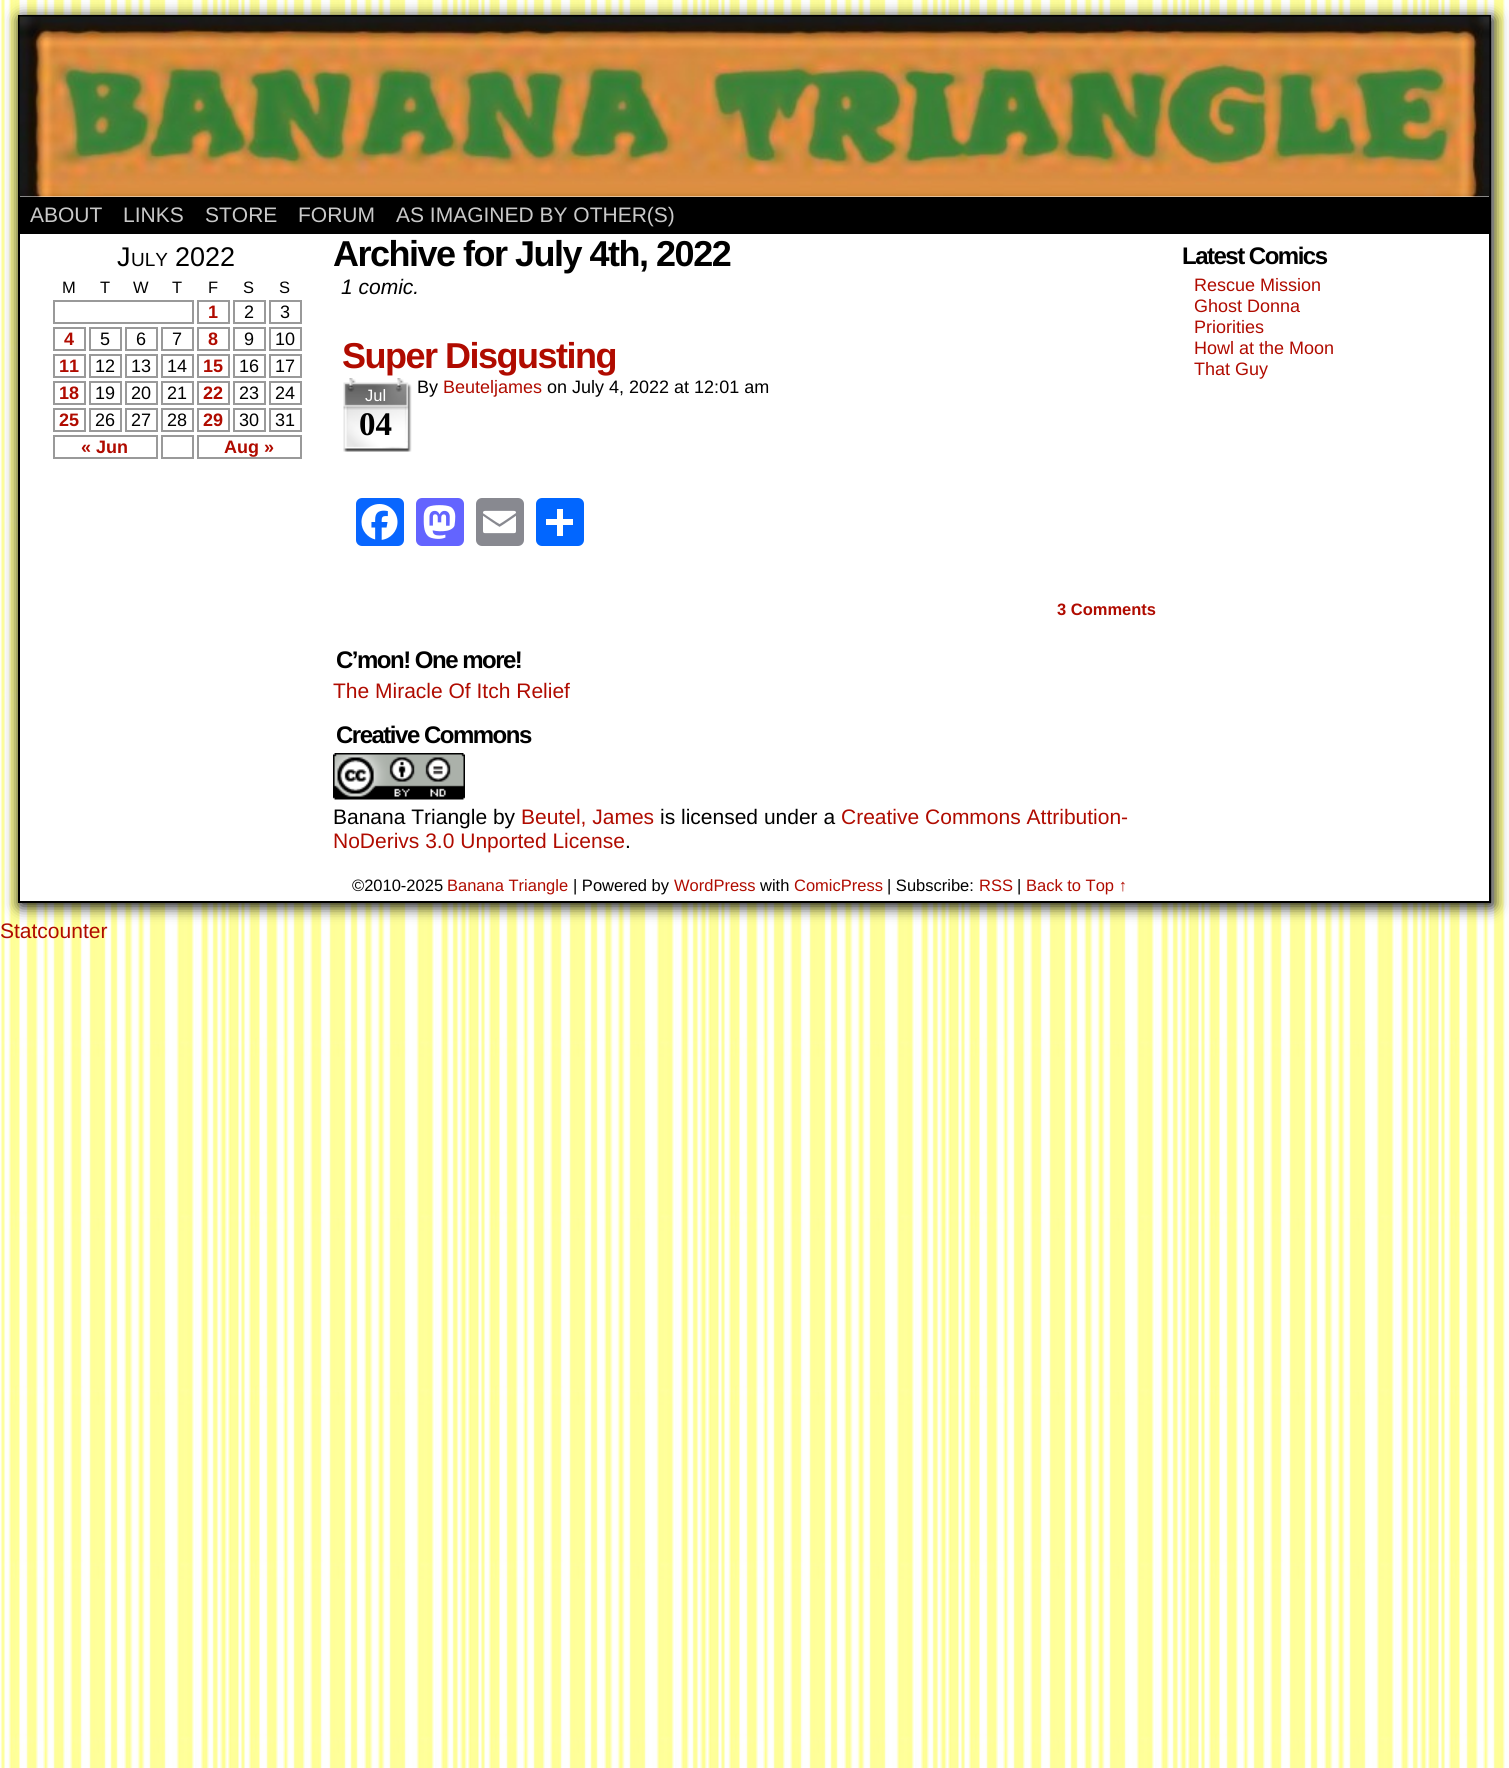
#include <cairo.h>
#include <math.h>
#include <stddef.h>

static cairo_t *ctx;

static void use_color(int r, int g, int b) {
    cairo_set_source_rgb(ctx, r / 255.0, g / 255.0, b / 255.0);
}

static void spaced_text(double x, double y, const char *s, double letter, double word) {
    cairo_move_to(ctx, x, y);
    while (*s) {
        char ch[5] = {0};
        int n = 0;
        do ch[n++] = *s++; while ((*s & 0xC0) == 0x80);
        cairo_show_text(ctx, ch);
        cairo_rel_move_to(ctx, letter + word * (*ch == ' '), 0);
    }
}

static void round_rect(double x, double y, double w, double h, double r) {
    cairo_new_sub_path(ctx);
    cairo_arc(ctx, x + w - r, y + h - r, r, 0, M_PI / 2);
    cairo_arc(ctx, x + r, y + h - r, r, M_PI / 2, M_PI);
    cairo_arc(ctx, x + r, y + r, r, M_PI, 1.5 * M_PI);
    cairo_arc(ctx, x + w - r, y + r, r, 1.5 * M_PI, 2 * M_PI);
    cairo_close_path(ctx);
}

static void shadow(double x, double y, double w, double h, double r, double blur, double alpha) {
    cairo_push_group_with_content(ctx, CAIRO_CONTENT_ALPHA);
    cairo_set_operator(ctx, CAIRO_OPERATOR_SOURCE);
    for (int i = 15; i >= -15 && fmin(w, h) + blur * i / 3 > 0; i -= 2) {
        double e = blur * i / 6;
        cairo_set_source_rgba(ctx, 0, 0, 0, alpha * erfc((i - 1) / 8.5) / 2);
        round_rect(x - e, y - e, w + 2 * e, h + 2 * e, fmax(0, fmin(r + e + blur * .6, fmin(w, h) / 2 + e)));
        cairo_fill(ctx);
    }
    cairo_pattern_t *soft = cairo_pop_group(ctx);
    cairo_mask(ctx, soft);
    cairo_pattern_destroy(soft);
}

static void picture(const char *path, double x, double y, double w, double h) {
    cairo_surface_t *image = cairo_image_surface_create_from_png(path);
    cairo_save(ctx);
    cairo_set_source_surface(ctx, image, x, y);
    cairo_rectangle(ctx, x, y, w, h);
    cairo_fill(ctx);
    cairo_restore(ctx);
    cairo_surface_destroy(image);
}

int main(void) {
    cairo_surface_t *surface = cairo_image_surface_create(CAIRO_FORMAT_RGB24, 1509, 1768);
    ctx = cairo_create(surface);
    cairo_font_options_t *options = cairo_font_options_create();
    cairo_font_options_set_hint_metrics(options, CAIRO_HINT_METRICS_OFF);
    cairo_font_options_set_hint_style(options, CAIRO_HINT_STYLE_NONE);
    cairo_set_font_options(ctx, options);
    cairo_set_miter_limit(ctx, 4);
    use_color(255, 255, 255);
    cairo_paint(ctx);
    picture("img1.png", 0, 0, 1509, 1768);
    use_color(0, 0, 0);
    shadow(20, 18, 1473, 888, 0, 7.5, 1);
    use_color(255, 255, 255);
    cairo_rectangle(ctx, 20, 196, 1469, 705);
    cairo_fill(ctx);
    cairo_rectangle(ctx, 19, 16, 1471, 886);
    use_color(0, 0, 0);
    cairo_stroke(ctx);
    picture("img2.png", 19, 16, 1471, 181);
    cairo_rectangle(ctx, 20, 197, 1469, 37);
    cairo_fill(ctx);
    cairo_select_font_face(ctx, "Liberation Sans", CAIRO_FONT_SLANT_NORMAL, CAIRO_FONT_WEIGHT_NORMAL);
    cairo_set_font_size(ctx, 21);
    use_color(201, 201, 201);
    cairo_move_to(ctx, 30, 222);
    cairo_show_text(ctx, "ABOUT");
    cairo_move_to(ctx, 123, 222);
    cairo_show_text(ctx, "LINKS");
    cairo_move_to(ctx, 205, 222);
    cairo_show_text(ctx, "STORE");
    cairo_move_to(ctx, 298, 222);
    cairo_show_text(ctx, "FORUM");
    cairo_move_to(ctx, 396, 222);
    cairo_show_text(ctx, "AS IMAGINED BY OTHER(S)");
    cairo_set_font_size(ctx, 27);
    use_color(0, 0, 0);
    cairo_move_to(ctx, 117, 266);
    cairo_show_text(ctx, "J");
    cairo_set_font_size(ctx, 19);
    cairo_move_to(ctx, 131, 266);
    cairo_show_text(ctx, "ULY");
    cairo_set_font_size(ctx, 27);
    cairo_move_to(ctx, 175, 266);
    cairo_show_text(ctx, "2022");
    cairo_set_font_size(ctx, 16.5);
    cairo_move_to(ctx, 62, 293);
    cairo_show_text(ctx, "M");
    cairo_move_to(ctx, 100, 293);
    cairo_show_text(ctx, "T");
    cairo_move_to(ctx, 133, 293);
    cairo_show_text(ctx, "W");
    cairo_move_to(ctx, 172, 293);
    cairo_show_text(ctx, "T");
    cairo_move_to(ctx, 208, 293);
    cairo_show_text(ctx, "F");
    cairo_move_to(ctx, 243, 293);
    cairo_show_text(ctx, "S");
    cairo_move_to(ctx, 279, 293);
    cairo_show_text(ctx, "S");
    cairo_rectangle(ctx, 54, 301, 139, 22);
    use_color(153, 153, 153);
    cairo_stroke(ctx);
    cairo_rectangle(ctx, 198, 301, 31, 22);
    cairo_stroke(ctx);
    cairo_select_font_face(ctx, "Liberation Sans", CAIRO_FONT_SLANT_NORMAL, CAIRO_FONT_WEIGHT_BOLD);
    cairo_set_font_size(ctx, 18);
    use_color(176, 11, 0);
    cairo_move_to(ctx, 208, 318);
    cairo_show_text(ctx, "1");
    cairo_rectangle(ctx, 234, 301, 31, 22);
    use_color(153, 153, 153);
    cairo_stroke(ctx);
    cairo_select_font_face(ctx, "Liberation Sans", CAIRO_FONT_SLANT_NORMAL, CAIRO_FONT_WEIGHT_NORMAL);
    use_color(0, 0, 0);
    cairo_move_to(ctx, 244, 318);
    cairo_show_text(ctx, "2");
    cairo_rectangle(ctx, 270, 301, 31, 22);
    use_color(153, 153, 153);
    cairo_stroke(ctx);
    use_color(0, 0, 0);
    cairo_move_to(ctx, 280, 318);
    cairo_show_text(ctx, "3");
    cairo_rectangle(ctx, 54, 328, 31, 22);
    use_color(153, 153, 153);
    cairo_stroke(ctx);
    cairo_select_font_face(ctx, "Liberation Sans", CAIRO_FONT_SLANT_NORMAL, CAIRO_FONT_WEIGHT_BOLD);
    use_color(176, 11, 0);
    cairo_move_to(ctx, 64, 345);
    cairo_show_text(ctx, "4");
    cairo_rectangle(ctx, 90, 328, 31, 22);
    use_color(153, 153, 153);
    cairo_stroke(ctx);
    cairo_select_font_face(ctx, "Liberation Sans", CAIRO_FONT_SLANT_NORMAL, CAIRO_FONT_WEIGHT_NORMAL);
    use_color(0, 0, 0);
    cairo_move_to(ctx, 100, 345);
    cairo_show_text(ctx, "5");
    cairo_rectangle(ctx, 126, 328, 31, 22);
    use_color(153, 153, 153);
    cairo_stroke(ctx);
    use_color(0, 0, 0);
    cairo_move_to(ctx, 136, 345);
    cairo_show_text(ctx, "6");
    cairo_rectangle(ctx, 162, 328, 31, 22);
    use_color(153, 153, 153);
    cairo_stroke(ctx);
    use_color(0, 0, 0);
    cairo_move_to(ctx, 172, 345);
    cairo_show_text(ctx, "7");
    cairo_rectangle(ctx, 198, 328, 31, 22);
    use_color(153, 153, 153);
    cairo_stroke(ctx);
    cairo_select_font_face(ctx, "Liberation Sans", CAIRO_FONT_SLANT_NORMAL, CAIRO_FONT_WEIGHT_BOLD);
    use_color(176, 11, 0);
    cairo_move_to(ctx, 208, 345);
    cairo_show_text(ctx, "8");
    cairo_rectangle(ctx, 234, 328, 31, 22);
    use_color(153, 153, 153);
    cairo_stroke(ctx);
    cairo_select_font_face(ctx, "Liberation Sans", CAIRO_FONT_SLANT_NORMAL, CAIRO_FONT_WEIGHT_NORMAL);
    use_color(0, 0, 0);
    cairo_move_to(ctx, 244, 345);
    cairo_show_text(ctx, "9");
    cairo_rectangle(ctx, 270, 328, 31, 22);
    use_color(153, 153, 153);
    cairo_stroke(ctx);
    use_color(0, 0, 0);
    cairo_move_to(ctx, 275, 345);
    cairo_show_text(ctx, "10");
    cairo_rectangle(ctx, 54, 355, 31, 22);
    use_color(153, 153, 153);
    cairo_stroke(ctx);
    cairo_select_font_face(ctx, "Liberation Sans", CAIRO_FONT_SLANT_NORMAL, CAIRO_FONT_WEIGHT_BOLD);
    use_color(176, 11, 0);
    cairo_move_to(ctx, 59, 372);
    cairo_show_text(ctx, "11");
    cairo_rectangle(ctx, 90, 355, 31, 22);
    use_color(153, 153, 153);
    cairo_stroke(ctx);
    cairo_select_font_face(ctx, "Liberation Sans", CAIRO_FONT_SLANT_NORMAL, CAIRO_FONT_WEIGHT_NORMAL);
    use_color(0, 0, 0);
    cairo_move_to(ctx, 95, 372);
    cairo_show_text(ctx, "12");
    cairo_rectangle(ctx, 126, 355, 31, 22);
    use_color(153, 153, 153);
    cairo_stroke(ctx);
    use_color(0, 0, 0);
    cairo_move_to(ctx, 131, 372);
    cairo_show_text(ctx, "13");
    cairo_rectangle(ctx, 162, 355, 31, 22);
    use_color(153, 153, 153);
    cairo_stroke(ctx);
    use_color(0, 0, 0);
    cairo_move_to(ctx, 167, 372);
    cairo_show_text(ctx, "14");
    cairo_rectangle(ctx, 198, 355, 31, 22);
    use_color(153, 153, 153);
    cairo_stroke(ctx);
    cairo_select_font_face(ctx, "Liberation Sans", CAIRO_FONT_SLANT_NORMAL, CAIRO_FONT_WEIGHT_BOLD);
    use_color(176, 11, 0);
    cairo_move_to(ctx, 203, 372);
    cairo_show_text(ctx, "15");
    cairo_rectangle(ctx, 234, 355, 31, 22);
    use_color(153, 153, 153);
    cairo_stroke(ctx);
    cairo_select_font_face(ctx, "Liberation Sans", CAIRO_FONT_SLANT_NORMAL, CAIRO_FONT_WEIGHT_NORMAL);
    use_color(0, 0, 0);
    cairo_move_to(ctx, 239, 372);
    cairo_show_text(ctx, "16");
    cairo_rectangle(ctx, 270, 355, 31, 22);
    use_color(153, 153, 153);
    cairo_stroke(ctx);
    use_color(0, 0, 0);
    cairo_move_to(ctx, 275, 372);
    cairo_show_text(ctx, "17");
    cairo_rectangle(ctx, 54, 382, 31, 22);
    use_color(153, 153, 153);
    cairo_stroke(ctx);
    cairo_select_font_face(ctx, "Liberation Sans", CAIRO_FONT_SLANT_NORMAL, CAIRO_FONT_WEIGHT_BOLD);
    use_color(176, 11, 0);
    cairo_move_to(ctx, 59, 399);
    cairo_show_text(ctx, "18");
    cairo_rectangle(ctx, 90, 382, 31, 22);
    use_color(153, 153, 153);
    cairo_stroke(ctx);
    cairo_select_font_face(ctx, "Liberation Sans", CAIRO_FONT_SLANT_NORMAL, CAIRO_FONT_WEIGHT_NORMAL);
    use_color(0, 0, 0);
    cairo_move_to(ctx, 95, 399);
    cairo_show_text(ctx, "19");
    cairo_rectangle(ctx, 126, 382, 31, 22);
    use_color(153, 153, 153);
    cairo_stroke(ctx);
    use_color(0, 0, 0);
    cairo_move_to(ctx, 131, 399);
    cairo_show_text(ctx, "20");
    cairo_rectangle(ctx, 162, 382, 31, 22);
    use_color(153, 153, 153);
    cairo_stroke(ctx);
    use_color(0, 0, 0);
    cairo_move_to(ctx, 167, 399);
    cairo_show_text(ctx, "21");
    cairo_rectangle(ctx, 198, 382, 31, 22);
    use_color(153, 153, 153);
    cairo_stroke(ctx);
    cairo_select_font_face(ctx, "Liberation Sans", CAIRO_FONT_SLANT_NORMAL, CAIRO_FONT_WEIGHT_BOLD);
    use_color(176, 11, 0);
    cairo_move_to(ctx, 203, 399);
    cairo_show_text(ctx, "22");
    cairo_rectangle(ctx, 234, 382, 31, 22);
    use_color(153, 153, 153);
    cairo_stroke(ctx);
    cairo_select_font_face(ctx, "Liberation Sans", CAIRO_FONT_SLANT_NORMAL, CAIRO_FONT_WEIGHT_NORMAL);
    use_color(0, 0, 0);
    cairo_move_to(ctx, 239, 399);
    cairo_show_text(ctx, "23");
    cairo_rectangle(ctx, 270, 382, 31, 22);
    use_color(153, 153, 153);
    cairo_stroke(ctx);
    use_color(0, 0, 0);
    cairo_move_to(ctx, 275, 399);
    cairo_show_text(ctx, "24");
    cairo_rectangle(ctx, 54, 409, 31, 22);
    use_color(153, 153, 153);
    cairo_stroke(ctx);
    cairo_select_font_face(ctx, "Liberation Sans", CAIRO_FONT_SLANT_NORMAL, CAIRO_FONT_WEIGHT_BOLD);
    use_color(176, 11, 0);
    cairo_move_to(ctx, 59, 426);
    cairo_show_text(ctx, "25");
    cairo_rectangle(ctx, 90, 409, 31, 22);
    use_color(153, 153, 153);
    cairo_stroke(ctx);
    cairo_select_font_face(ctx, "Liberation Sans", CAIRO_FONT_SLANT_NORMAL, CAIRO_FONT_WEIGHT_NORMAL);
    use_color(0, 0, 0);
    cairo_move_to(ctx, 95, 426);
    cairo_show_text(ctx, "26");
    cairo_rectangle(ctx, 126, 409, 31, 22);
    use_color(153, 153, 153);
    cairo_stroke(ctx);
    use_color(0, 0, 0);
    cairo_move_to(ctx, 131, 426);
    cairo_show_text(ctx, "27");
    cairo_rectangle(ctx, 162, 409, 31, 22);
    use_color(153, 153, 153);
    cairo_stroke(ctx);
    use_color(0, 0, 0);
    cairo_move_to(ctx, 167, 426);
    cairo_show_text(ctx, "28");
    cairo_rectangle(ctx, 198, 409, 31, 22);
    use_color(153, 153, 153);
    cairo_stroke(ctx);
    cairo_select_font_face(ctx, "Liberation Sans", CAIRO_FONT_SLANT_NORMAL, CAIRO_FONT_WEIGHT_BOLD);
    use_color(176, 11, 0);
    cairo_move_to(ctx, 203, 426);
    cairo_show_text(ctx, "29");
    cairo_rectangle(ctx, 234, 409, 31, 22);
    use_color(153, 153, 153);
    cairo_stroke(ctx);
    cairo_select_font_face(ctx, "Liberation Sans", CAIRO_FONT_SLANT_NORMAL, CAIRO_FONT_WEIGHT_NORMAL);
    use_color(0, 0, 0);
    cairo_move_to(ctx, 239, 426);
    cairo_show_text(ctx, "30");
    cairo_rectangle(ctx, 270, 409, 31, 22);
    use_color(153, 153, 153);
    cairo_stroke(ctx);
    use_color(0, 0, 0);
    cairo_move_to(ctx, 275, 426);
    cairo_show_text(ctx, "31");
    cairo_rectangle(ctx, 54, 436, 103, 22);
    use_color(153, 153, 153);
    cairo_stroke(ctx);
    cairo_select_font_face(ctx, "Liberation Sans", CAIRO_FONT_SLANT_NORMAL, CAIRO_FONT_WEIGHT_BOLD);
    use_color(176, 11, 0);
    cairo_move_to(ctx, 81, 453);
    cairo_show_text(ctx, "« Jun");
    cairo_rectangle(ctx, 162, 436, 31, 22);
    use_color(153, 153, 153);
    cairo_stroke(ctx);
    cairo_rectangle(ctx, 198, 436, 103, 22);
    cairo_stroke(ctx);
    use_color(176, 11, 0);
    cairo_move_to(ctx, 224, 453);
    cairo_show_text(ctx, "Aug »");
    cairo_set_font_size(ctx, 36);
    use_color(0, 0, 0);
    spaced_text(333, 266, "Archive for July 4th, 2022", -1.5, 0);
    cairo_select_font_face(ctx, "Liberation Sans", CAIRO_FONT_SLANT_ITALIC, CAIRO_FONT_WEIGHT_NORMAL);
    cairo_set_font_size(ctx, 21);
    cairo_move_to(ctx, 341, 294);
    cairo_show_text(ctx, "1 comic.");
    cairo_select_font_face(ctx, "Liberation Sans", CAIRO_FONT_SLANT_NORMAL, CAIRO_FONT_WEIGHT_BOLD);
    cairo_set_font_size(ctx, 36);
    use_color(176, 11, 0);
    spaced_text(342, 368, "Super Disgusting", -1.5, 0);
    picture("img3.png", 343, 378, 69, 74);
    cairo_select_font_face(ctx, "Liberation Sans", CAIRO_FONT_SLANT_NORMAL, CAIRO_FONT_WEIGHT_NORMAL);
    cairo_set_font_size(ctx, 16.5);
    use_color(255, 255, 255);
    cairo_move_to(ctx, 365, 401);
    cairo_show_text(ctx, "Jul");
    cairo_select_font_face(ctx, "Liberation Serif", CAIRO_FONT_SLANT_NORMAL, CAIRO_FONT_WEIGHT_BOLD);
    cairo_set_font_size(ctx, 33);
    use_color(0, 0, 0);
    cairo_move_to(ctx, 359, 435);
    cairo_show_text(ctx, "04");
    cairo_select_font_face(ctx, "Liberation Sans", CAIRO_FONT_SLANT_NORMAL, CAIRO_FONT_WEIGHT_NORMAL);
    cairo_set_font_size(ctx, 18);
    cairo_move_to(ctx, 417, 393);
    cairo_show_text(ctx, "By");
    use_color(176, 11, 0);
    cairo_move_to(ctx, 443, 393);
    cairo_show_text(ctx, "Beuteljames");
    use_color(0, 0, 0);
    cairo_move_to(ctx, 547, 393);
    cairo_show_text(ctx, "on July 4, 2022 at 12:01 am");
    use_color(8, 102, 255);
    round_rect(356, 498, 48, 48, 6);
    cairo_fill(ctx);
    picture("img4.png", 361, 504, 37, 36);
    use_color(99, 100, 255);
    round_rect(416, 498, 48, 48, 6);
    cairo_fill(ctx);
    picture("img5.png", 423, 505, 33, 34);
    use_color(136, 137, 144);
    round_rect(476, 498, 48, 48, 6);
    cairo_fill(ctx);
    picture("img6.png", 483, 510, 33, 24);
    use_color(1, 102, 255);
    round_rect(536, 498, 48, 48, 6);
    cairo_fill(ctx);
    use_color(255, 255, 255);
    cairo_rectangle(ctx, 557, 509, 6, 27);
    cairo_fill(ctx);
    cairo_rectangle(ctx, 546, 519, 27, 6);
    cairo_fill(ctx);
    cairo_select_font_face(ctx, "Liberation Sans", CAIRO_FONT_SLANT_NORMAL, CAIRO_FONT_WEIGHT_BOLD);
    cairo_set_font_size(ctx, 16.5);
    use_color(176, 11, 0);
    cairo_move_to(ctx, 1057, 615);
    cairo_show_text(ctx, "3 Comments");
    cairo_set_font_size(ctx, 24);
    use_color(0, 0, 0);
    spaced_text(336, 668, "C’mon! One more!", -1.5, 0);
    cairo_select_font_face(ctx, "Liberation Sans", CAIRO_FONT_SLANT_NORMAL, CAIRO_FONT_WEIGHT_NORMAL);
    cairo_set_font_size(ctx, 21);
    use_color(176, 11, 0);
    cairo_move_to(ctx, 333, 698);
    cairo_show_text(ctx, "The Miracle Of Itch Relief");
    cairo_select_font_face(ctx, "Liberation Sans", CAIRO_FONT_SLANT_NORMAL, CAIRO_FONT_WEIGHT_BOLD);
    cairo_set_font_size(ctx, 24);
    use_color(0, 0, 0);
    spaced_text(336, 743, "Creative Commons", -1.5, 0);
    picture("img7.png", 333, 753, 132, 47);
    cairo_select_font_face(ctx, "Liberation Sans", CAIRO_FONT_SLANT_NORMAL, CAIRO_FONT_WEIGHT_NORMAL);
    cairo_set_font_size(ctx, 21);
    cairo_move_to(ctx, 333, 824);
    cairo_show_text(ctx, "Banana Triangle by");
    use_color(176, 11, 0);
    cairo_move_to(ctx, 521, 824);
    cairo_show_text(ctx, "Beutel, James");
    use_color(0, 0, 0);
    cairo_move_to(ctx, 660, 824);
    cairo_show_text(ctx, "is licensed under a");
    use_color(176, 11, 0);
    cairo_move_to(ctx, 841, 824);
    cairo_show_text(ctx, "Creative Commons Attribution-");
    cairo_move_to(ctx, 333, 848);
    cairo_show_text(ctx, "NoDerivs 3.0 Unported License");
    use_color(0, 0, 0);
    cairo_move_to(ctx, 625, 848);
    cairo_show_text(ctx, ".");
    cairo_select_font_face(ctx, "Liberation Sans", CAIRO_FONT_SLANT_NORMAL, CAIRO_FONT_WEIGHT_BOLD);
    cairo_set_font_size(ctx, 24);
    spaced_text(1182, 264, "Latest Comics", -1.5, 0);
    cairo_select_font_face(ctx, "Liberation Sans", CAIRO_FONT_SLANT_NORMAL, CAIRO_FONT_WEIGHT_NORMAL);
    cairo_set_font_size(ctx, 18);
    use_color(176, 11, 0);
    cairo_move_to(ctx, 1194, 291);
    cairo_show_text(ctx, "Rescue Mission");
    cairo_move_to(ctx, 1194, 312);
    cairo_show_text(ctx, "Ghost Donna");
    cairo_move_to(ctx, 1194, 333);
    cairo_show_text(ctx, "Priorities");
    cairo_move_to(ctx, 1194, 354);
    cairo_show_text(ctx, "Howl at the Moon");
    cairo_move_to(ctx, 1194, 375);
    cairo_show_text(ctx, "That Guy");
    cairo_set_font_size(ctx, 16.5);
    use_color(0, 0, 0);
    cairo_move_to(ctx, 352, 891);
    cairo_show_text(ctx, "©2010-2025");
    use_color(176, 11, 0);
    cairo_move_to(ctx, 447, 891);
    cairo_show_text(ctx, "Banana Triangle");
    use_color(0, 0, 0);
    cairo_move_to(ctx, 573, 891);
    cairo_show_text(ctx, "| Powered by");
    use_color(176, 11, 0);
    cairo_move_to(ctx, 674, 891);
    cairo_show_text(ctx, "WordPress");
    use_color(0, 0, 0);
    cairo_move_to(ctx, 760, 891);
    cairo_show_text(ctx, "with");
    use_color(176, 11, 0);
    cairo_move_to(ctx, 794, 891);
    cairo_show_text(ctx, "ComicPress");
    use_color(0, 0, 0);
    cairo_move_to(ctx, 887, 891);
    cairo_show_text(ctx, "| Subscribe:");
    use_color(176, 11, 0);
    cairo_move_to(ctx, 979, 891);
    cairo_show_text(ctx, "RSS");
    use_color(0, 0, 0);
    cairo_move_to(ctx, 1017, 891);
    cairo_show_text(ctx, "|");
    use_color(176, 11, 0);
    cairo_move_to(ctx, 1026, 891);
    cairo_show_text(ctx, "Back to Top ↑");
    cairo_set_font_size(ctx, 21);
    cairo_move_to(ctx, 0, 938);
    cairo_show_text(ctx, "Statcounter");
    cairo_surface_write_to_png(surface, "result.png");
    cairo_font_options_destroy(options);
    cairo_destroy(ctx);
    cairo_surface_destroy(surface);
    return 0;
}
